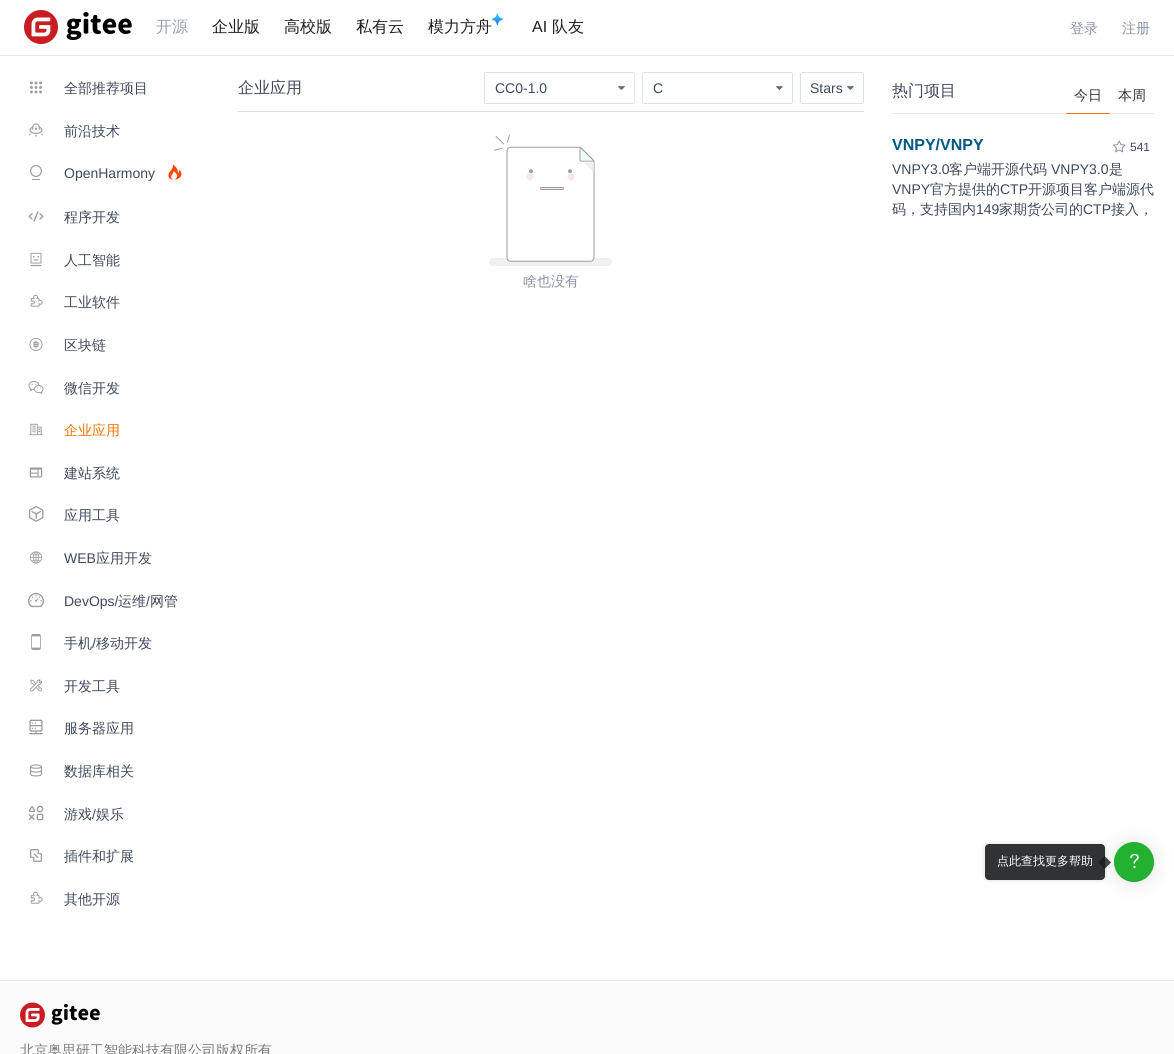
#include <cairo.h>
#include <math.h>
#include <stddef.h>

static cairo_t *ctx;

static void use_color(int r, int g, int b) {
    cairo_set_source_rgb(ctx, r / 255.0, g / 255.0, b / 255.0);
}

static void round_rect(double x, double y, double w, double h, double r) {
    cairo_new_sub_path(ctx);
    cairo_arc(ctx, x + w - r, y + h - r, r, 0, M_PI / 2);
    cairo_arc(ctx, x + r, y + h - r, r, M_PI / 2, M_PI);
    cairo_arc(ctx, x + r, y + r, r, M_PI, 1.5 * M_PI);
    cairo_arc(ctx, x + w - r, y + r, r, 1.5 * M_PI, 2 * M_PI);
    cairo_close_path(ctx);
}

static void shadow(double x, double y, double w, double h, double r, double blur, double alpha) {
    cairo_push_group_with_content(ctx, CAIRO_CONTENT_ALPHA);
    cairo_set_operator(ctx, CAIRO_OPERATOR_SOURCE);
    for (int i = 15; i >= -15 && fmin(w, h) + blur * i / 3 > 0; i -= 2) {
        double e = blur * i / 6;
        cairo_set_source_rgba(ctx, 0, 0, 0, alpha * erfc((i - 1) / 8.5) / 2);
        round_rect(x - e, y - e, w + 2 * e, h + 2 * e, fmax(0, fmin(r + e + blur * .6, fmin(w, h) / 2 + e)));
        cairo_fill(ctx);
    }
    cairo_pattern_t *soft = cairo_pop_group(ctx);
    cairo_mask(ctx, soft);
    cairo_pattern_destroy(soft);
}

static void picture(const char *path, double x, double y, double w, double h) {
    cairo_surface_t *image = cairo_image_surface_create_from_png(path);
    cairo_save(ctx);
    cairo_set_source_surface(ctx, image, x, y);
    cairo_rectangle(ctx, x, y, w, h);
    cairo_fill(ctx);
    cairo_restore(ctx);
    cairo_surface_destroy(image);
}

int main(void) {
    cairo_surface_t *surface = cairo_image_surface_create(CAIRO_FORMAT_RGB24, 1174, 1054);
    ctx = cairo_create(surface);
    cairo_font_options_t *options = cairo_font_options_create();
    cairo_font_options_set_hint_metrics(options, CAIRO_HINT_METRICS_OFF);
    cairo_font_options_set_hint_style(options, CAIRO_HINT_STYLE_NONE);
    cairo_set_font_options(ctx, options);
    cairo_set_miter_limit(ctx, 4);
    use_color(255, 255, 255);
    cairo_paint(ctx);
    use_color(227, 233, 237);
    cairo_rectangle(ctx, 0, 55, 1174, 1);
    cairo_fill(ctx);
    picture("img1.png", 24, 10, 108, 34);
    cairo_select_font_face(ctx, "WenQuanYi Zen Hei Medium", CAIRO_FONT_SLANT_NORMAL, CAIRO_FONT_WEIGHT_NORMAL);
    cairo_set_font_size(ctx, 16);
    use_color(156, 163, 175);
    cairo_move_to(ctx, 156, 32);
    cairo_show_text(ctx, "开源");
    use_color(31, 31, 31);
    cairo_move_to(ctx, 212, 32);
    cairo_show_text(ctx, "企业版");
    cairo_move_to(ctx, 284, 32);
    cairo_show_text(ctx, "高校版");
    cairo_move_to(ctx, 356, 32);
    cairo_show_text(ctx, "私有云");
    cairo_move_to(ctx, 428, 32);
    cairo_show_text(ctx, "模力方舟");
    picture("img2.png", 492, 13, 12, 12);
    cairo_select_font_face(ctx, "Liberation Sans", CAIRO_FONT_SLANT_NORMAL, CAIRO_FONT_WEIGHT_NORMAL);
    cairo_move_to(ctx, 532, 32);
    cairo_show_text(ctx, "AI");
    cairo_select_font_face(ctx, "WenQuanYi Zen Hei Medium", CAIRO_FONT_SLANT_NORMAL, CAIRO_FONT_WEIGHT_NORMAL);
    cairo_move_to(ctx, 552, 32);
    cairo_show_text(ctx, "队友");
    cairo_set_font_size(ctx, 14);
    use_color(140, 146, 164);
    cairo_move_to(ctx, 1070, 33);
    cairo_show_text(ctx, "登录");
    cairo_move_to(ctx, 1122, 33);
    cairo_show_text(ctx, "注册");
    picture("img3.png", 30, 81, 12, 13);
    use_color(64, 72, 91);
    cairo_move_to(ctx, 64, 93);
    cairo_show_text(ctx, "全部推荐项目");
    picture("img4.png", 29, 123, 14, 14);
    cairo_move_to(ctx, 64, 136);
    cairo_show_text(ctx, "前沿技术");
    picture("img5.png", 30, 165, 12, 15);
    cairo_select_font_face(ctx, "Liberation Sans", CAIRO_FONT_SLANT_NORMAL, CAIRO_FONT_WEIGHT_NORMAL);
    cairo_move_to(ctx, 64, 178);
    cairo_show_text(ctx, "OpenHarmony");
    picture("img6.png", 168, 164, 14, 16);
    picture("img7.png", 28, 211, 16, 11);
    cairo_select_font_face(ctx, "WenQuanYi Zen Hei Medium", CAIRO_FONT_SLANT_NORMAL, CAIRO_FONT_WEIGHT_NORMAL);
    cairo_move_to(ctx, 64, 222);
    cairo_show_text(ctx, "程序开发");
    picture("img8.png", 30, 252, 12, 15);
    cairo_move_to(ctx, 64, 265);
    cairo_show_text(ctx, "人工智能");
    picture("img9.png", 30, 294, 13, 13);
    cairo_move_to(ctx, 64, 307);
    cairo_show_text(ctx, "工业软件");
    picture("img10.png", 29, 337, 14, 14);
    cairo_move_to(ctx, 64, 350);
    cairo_show_text(ctx, "区块链");
    picture("img11.png", 28, 380, 16, 14);
    cairo_move_to(ctx, 64, 393);
    cairo_show_text(ctx, "微信开发");
    picture("img12.png", 29, 423, 14, 13);
    use_color(254, 115, 0);
    cairo_move_to(ctx, 64, 435);
    cairo_show_text(ctx, "企业应用");
    picture("img13.png", 29, 467, 14, 11);
    use_color(64, 72, 91);
    cairo_move_to(ctx, 64, 478);
    cairo_show_text(ctx, "建站系统");
    picture("img14.png", 28, 506, 16, 16);
    cairo_move_to(ctx, 64, 520);
    cairo_show_text(ctx, "应用工具");
    picture("img15.png", 29, 551, 14, 13);
    cairo_select_font_face(ctx, "Liberation Sans", CAIRO_FONT_SLANT_NORMAL, CAIRO_FONT_WEIGHT_NORMAL);
    cairo_move_to(ctx, 64, 563);
    cairo_show_text(ctx, "WEB");
    cairo_select_font_face(ctx, "WenQuanYi Zen Hei Medium", CAIRO_FONT_SLANT_NORMAL, CAIRO_FONT_WEIGHT_NORMAL);
    cairo_move_to(ctx, 96, 563);
    cairo_show_text(ctx, "应用开发");
    picture("img16.png", 28, 592, 16, 16);
    cairo_select_font_face(ctx, "Liberation Sans", CAIRO_FONT_SLANT_NORMAL, CAIRO_FONT_WEIGHT_NORMAL);
    cairo_move_to(ctx, 64, 606);
    cairo_show_text(ctx, "DevOps/");
    cairo_select_font_face(ctx, "WenQuanYi Zen Hei Medium", CAIRO_FONT_SLANT_NORMAL, CAIRO_FONT_WEIGHT_NORMAL);
    cairo_move_to(ctx, 118, 606);
    cairo_show_text(ctx, "运维");
    cairo_select_font_face(ctx, "Liberation Sans", CAIRO_FONT_SLANT_NORMAL, CAIRO_FONT_WEIGHT_NORMAL);
    cairo_move_to(ctx, 146, 606);
    cairo_show_text(ctx, "/");
    cairo_select_font_face(ctx, "WenQuanYi Zen Hei Medium", CAIRO_FONT_SLANT_NORMAL, CAIRO_FONT_WEIGHT_NORMAL);
    cairo_move_to(ctx, 150, 606);
    cairo_show_text(ctx, "网管");
    picture("img17.png", 31, 634, 10, 16);
    cairo_move_to(ctx, 64, 648);
    cairo_show_text(ctx, "手机");
    cairo_select_font_face(ctx, "Liberation Sans", CAIRO_FONT_SLANT_NORMAL, CAIRO_FONT_WEIGHT_NORMAL);
    cairo_move_to(ctx, 92, 648);
    cairo_show_text(ctx, "/");
    cairo_select_font_face(ctx, "WenQuanYi Zen Hei Medium", CAIRO_FONT_SLANT_NORMAL, CAIRO_FONT_WEIGHT_NORMAL);
    cairo_move_to(ctx, 96, 648);
    cairo_show_text(ctx, "移动开发");
    picture("img18.png", 30, 679, 12, 13);
    cairo_move_to(ctx, 64, 691);
    cairo_show_text(ctx, "开发工具");
    picture("img19.png", 29, 719, 14, 16);
    cairo_move_to(ctx, 64, 733);
    cairo_show_text(ctx, "服务器应用");
    picture("img20.png", 30, 764, 12, 13);
    cairo_move_to(ctx, 64, 776);
    cairo_show_text(ctx, "数据库相关");
    picture("img21.png", 28, 805, 16, 16);
    cairo_move_to(ctx, 64, 819);
    cairo_show_text(ctx, "游戏");
    cairo_select_font_face(ctx, "Liberation Sans", CAIRO_FONT_SLANT_NORMAL, CAIRO_FONT_WEIGHT_NORMAL);
    cairo_move_to(ctx, 92, 819);
    cairo_show_text(ctx, "/");
    cairo_select_font_face(ctx, "WenQuanYi Zen Hei Medium", CAIRO_FONT_SLANT_NORMAL, CAIRO_FONT_WEIGHT_NORMAL);
    cairo_move_to(ctx, 96, 819);
    cairo_show_text(ctx, "娱乐");
    picture("img22.png", 30, 849, 12, 13);
    cairo_move_to(ctx, 64, 861);
    cairo_show_text(ctx, "插件和扩展");
    picture("img9.png", 30, 891, 13, 13);
    cairo_move_to(ctx, 64, 904);
    cairo_show_text(ctx, "其他开源");
    cairo_set_font_size(ctx, 16);
    cairo_move_to(ctx, 238, 93);
    cairo_show_text(ctx, "企业应用");
    round_rect(484.5, 72.5, 150, 31, 1.5);
    use_color(220, 227, 232);
    cairo_set_line_width(ctx, 1);
    cairo_stroke(ctx);
    cairo_select_font_face(ctx, "Liberation Sans", CAIRO_FONT_SLANT_NORMAL, CAIRO_FONT_WEIGHT_NORMAL);
    cairo_set_font_size(ctx, 14);
    use_color(64, 72, 91);
    cairo_move_to(ctx, 495, 93);
    cairo_show_text(ctx, "CC0-1.0");
    picture("img23.png", 618, 86, 7, 4);
    round_rect(642.5, 72.5, 150, 31, 1.5);
    use_color(220, 227, 232);
    cairo_stroke(ctx);
    use_color(64, 72, 91);
    cairo_move_to(ctx, 653, 93);
    cairo_show_text(ctx, "C");
    picture("img23.png", 776, 86, 7, 4);
    round_rect(800.5, 72.5, 63, 31, 1.5);
    use_color(220, 227, 232);
    cairo_stroke(ctx);
    use_color(64, 72, 91);
    cairo_move_to(ctx, 810, 93);
    cairo_show_text(ctx, "Stars");
    picture("img23.png", 847, 86, 7, 4);
    use_color(222, 222, 222);
    cairo_rectangle(ctx, 238, 111, 626, 1);
    cairo_fill(ctx);
    picture("img24.png", 489, 134, 123, 132);
    cairo_select_font_face(ctx, "WenQuanYi Zen Hei Medium", CAIRO_FONT_SLANT_NORMAL, CAIRO_FONT_WEIGHT_NORMAL);
    use_color(140, 146, 164);
    cairo_move_to(ctx, 523, 286);
    cairo_show_text(ctx, "啥也没有");
    use_color(227, 233, 237);
    cairo_rectangle(ctx, 892, 113, 174, 1);
    cairo_fill(ctx);
    cairo_set_font_size(ctx, 16);
    use_color(64, 72, 91);
    cairo_move_to(ctx, 892, 96);
    cairo_show_text(ctx, "热门项目");
    use_color(254, 115, 0);
    cairo_rectangle(ctx, 1066, 113, 44, 1);
    cairo_fill(ctx);
    cairo_set_font_size(ctx, 14);
    use_color(51, 51, 51);
    cairo_move_to(ctx, 1074, 100);
    cairo_show_text(ctx, "今日");
    use_color(227, 233, 237);
    cairo_rectangle(ctx, 1110, 113, 44, 1);
    cairo_fill(ctx);
    use_color(51, 51, 51);
    cairo_move_to(ctx, 1118, 100);
    cairo_show_text(ctx, "本周");
    cairo_select_font_face(ctx, "Liberation Sans", CAIRO_FONT_SLANT_NORMAL, CAIRO_FONT_WEIGHT_BOLD);
    cairo_set_font_size(ctx, 16);
    use_color(0, 89, 128);
    cairo_move_to(ctx, 892, 150);
    cairo_show_text(ctx, "VNPY/VNPY");
    picture("img25.png", 1113, 140, 13, 13);
    cairo_select_font_face(ctx, "Liberation Sans", CAIRO_FONT_SLANT_NORMAL, CAIRO_FONT_WEIGHT_NORMAL);
    cairo_set_font_size(ctx, 12);
    use_color(64, 72, 91);
    cairo_move_to(ctx, 1130, 151);
    cairo_show_text(ctx, "541");
    cairo_set_font_size(ctx, 14);
    cairo_move_to(ctx, 892, 174);
    cairo_show_text(ctx, "VNPY3.0");
    cairo_select_font_face(ctx, "WenQuanYi Zen Hei Medium", CAIRO_FONT_SLANT_NORMAL, CAIRO_FONT_WEIGHT_NORMAL);
    cairo_move_to(ctx, 949, 174);
    cairo_show_text(ctx, "客户端开源代码");
    cairo_select_font_face(ctx, "Liberation Sans", CAIRO_FONT_SLANT_NORMAL, CAIRO_FONT_WEIGHT_NORMAL);
    cairo_move_to(ctx, 1051, 174);
    cairo_show_text(ctx, "VNPY3.0");
    cairo_select_font_face(ctx, "WenQuanYi Zen Hei Medium", CAIRO_FONT_SLANT_NORMAL, CAIRO_FONT_WEIGHT_NORMAL);
    cairo_move_to(ctx, 1109, 174);
    cairo_show_text(ctx, "是");
    cairo_select_font_face(ctx, "Liberation Sans", CAIRO_FONT_SLANT_NORMAL, CAIRO_FONT_WEIGHT_NORMAL);
    cairo_move_to(ctx, 892, 194);
    cairo_show_text(ctx, "VNPY");
    cairo_select_font_face(ctx, "WenQuanYi Zen Hei Medium", CAIRO_FONT_SLANT_NORMAL, CAIRO_FONT_WEIGHT_NORMAL);
    cairo_move_to(ctx, 930, 194);
    cairo_show_text(ctx, "官方提供的");
    cairo_select_font_face(ctx, "Liberation Sans", CAIRO_FONT_SLANT_NORMAL, CAIRO_FONT_WEIGHT_NORMAL);
    cairo_move_to(ctx, 1000, 194);
    cairo_show_text(ctx, "CTP");
    cairo_select_font_face(ctx, "WenQuanYi Zen Hei Medium", CAIRO_FONT_SLANT_NORMAL, CAIRO_FONT_WEIGHT_NORMAL);
    cairo_move_to(ctx, 1028, 194);
    cairo_show_text(ctx, "开源项目客户端源代");
    cairo_move_to(ctx, 892, 214);
    cairo_show_text(ctx, "码，支持国内");
    cairo_select_font_face(ctx, "Liberation Sans", CAIRO_FONT_SLANT_NORMAL, CAIRO_FONT_WEIGHT_NORMAL);
    cairo_move_to(ctx, 976, 214);
    cairo_show_text(ctx, "149");
    cairo_select_font_face(ctx, "WenQuanYi Zen Hei Medium", CAIRO_FONT_SLANT_NORMAL, CAIRO_FONT_WEIGHT_NORMAL);
    cairo_move_to(ctx, 999, 214);
    cairo_show_text(ctx, "家期货公司的");
    cairo_select_font_face(ctx, "Liberation Sans", CAIRO_FONT_SLANT_NORMAL, CAIRO_FONT_WEIGHT_NORMAL);
    cairo_move_to(ctx, 1083, 214);
    cairo_show_text(ctx, "CTP");
    cairo_select_font_face(ctx, "WenQuanYi Zen Hei Medium", CAIRO_FONT_SLANT_NORMAL, CAIRO_FONT_WEIGHT_NORMAL);
    cairo_move_to(ctx, 1111, 214);
    cairo_show_text(ctx, "接入，");
    use_color(0, 0, 0);
    shadow(1114, 843, 40, 40, 20, 10, 0.1);
    use_color(34, 177, 48);
    cairo_arc(ctx, 1134, 862, 20, 0, 2 * M_PI);
    cairo_fill(ctx);
    cairo_set_source_rgba(ctx, 0, 0, 0, 0.1);
    cairo_new_path(ctx);
    cairo_move_to(ctx, 1115, 855);
    cairo_curve_to(ctx, 1113, 859, 1114, 865, 1116, 870);
    cairo_curve_to(ctx, 1126, 894, 1162, 878, 1153, 855);
    cairo_curve_to(ctx, 1156, 866, 1150, 881, 1134, 881);
    cairo_curve_to(ctx, 1118, 881, 1112, 866, 1115, 855);
    cairo_close_path(ctx);
    cairo_fill(ctx);
    cairo_save(ctx);
    cairo_set_fill_rule(ctx, CAIRO_FILL_RULE_EVEN_ODD);
    cairo_new_path(ctx);
    cairo_move_to(ctx, 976, 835);
    cairo_line_to(ctx, 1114, 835);
    cairo_line_to(ctx, 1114, 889);
    cairo_line_to(ctx, 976, 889);
    cairo_close_path(ctx);
    cairo_move_to(ctx, 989, 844);
    cairo_line_to(ctx, 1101, 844);
    cairo_curve_to(ctx, 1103, 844, 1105, 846, 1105, 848);
    cairo_line_to(ctx, 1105, 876);
    cairo_curve_to(ctx, 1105, 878, 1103, 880, 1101, 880);
    cairo_line_to(ctx, 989, 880);
    cairo_curve_to(ctx, 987, 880, 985, 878, 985, 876);
    cairo_line_to(ctx, 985, 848);
    cairo_curve_to(ctx, 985, 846, 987, 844, 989, 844);
    cairo_close_path(ctx);
    cairo_clip(ctx);
    use_color(140, 146, 163);
    shadow(986, 845, 118, 34, 3, 3, 0.45);
    cairo_restore(ctx);
    cairo_set_source_rgba(ctx, 0.106, 0.11, 0.114, 0.9);
    round_rect(985, 844, 120, 36, 4);
    cairo_fill(ctx);
    cairo_set_font_size(ctx, 12);
    use_color(255, 255, 255);
    cairo_move_to(ctx, 997, 865);
    cairo_show_text(ctx, "点此查找更多帮助");
    cairo_set_source_rgba(ctx, 0.702, 0.702, 0.702, 0.16);
    cairo_new_path(ctx);
    cairo_move_to(ctx, 1106, 856);
    cairo_line_to(ctx, 1105, 857);
    cairo_line_to(ctx, 1111, 862.5);
    cairo_line_to(ctx, 1105, 868);
    cairo_line_to(ctx, 1106, 869);
    cairo_line_to(ctx, 1112, 862.5);
    cairo_close_path(ctx);
    cairo_fill(ctx);
    cairo_set_source_rgba(ctx, 0.106, 0.11, 0.114, 0.81);
    cairo_new_path(ctx);
    cairo_move_to(ctx, 1104.5, 856);
    cairo_line_to(ctx, 1111, 862.5);
    cairo_line_to(ctx, 1104.5, 869);
    cairo_line_to(ctx, 1098, 862.5);
    cairo_close_path(ctx);
    cairo_fill(ctx);
    picture("img26.png", 1130, 853, 9, 16);
    use_color(251, 251, 251);
    cairo_rectangle(ctx, 0, 981, 1174, 73);
    cairo_fill(ctx);
    use_color(227, 233, 237);
    cairo_rectangle(ctx, 0, 980, 1174, 1);
    cairo_fill(ctx);
    picture("img27.png", 20, 1002, 80, 26);
    cairo_set_font_size(ctx, 14);
    use_color(122, 122, 122);
    cairo_move_to(ctx, 20, 1055);
    cairo_show_text(ctx, "北京奥思研工智能科技有限公司版权所有");
    cairo_surface_write_to_png(surface, "result.png");
    cairo_font_options_destroy(options);
    cairo_destroy(ctx);
    cairo_surface_destroy(surface);
    return 0;
}
